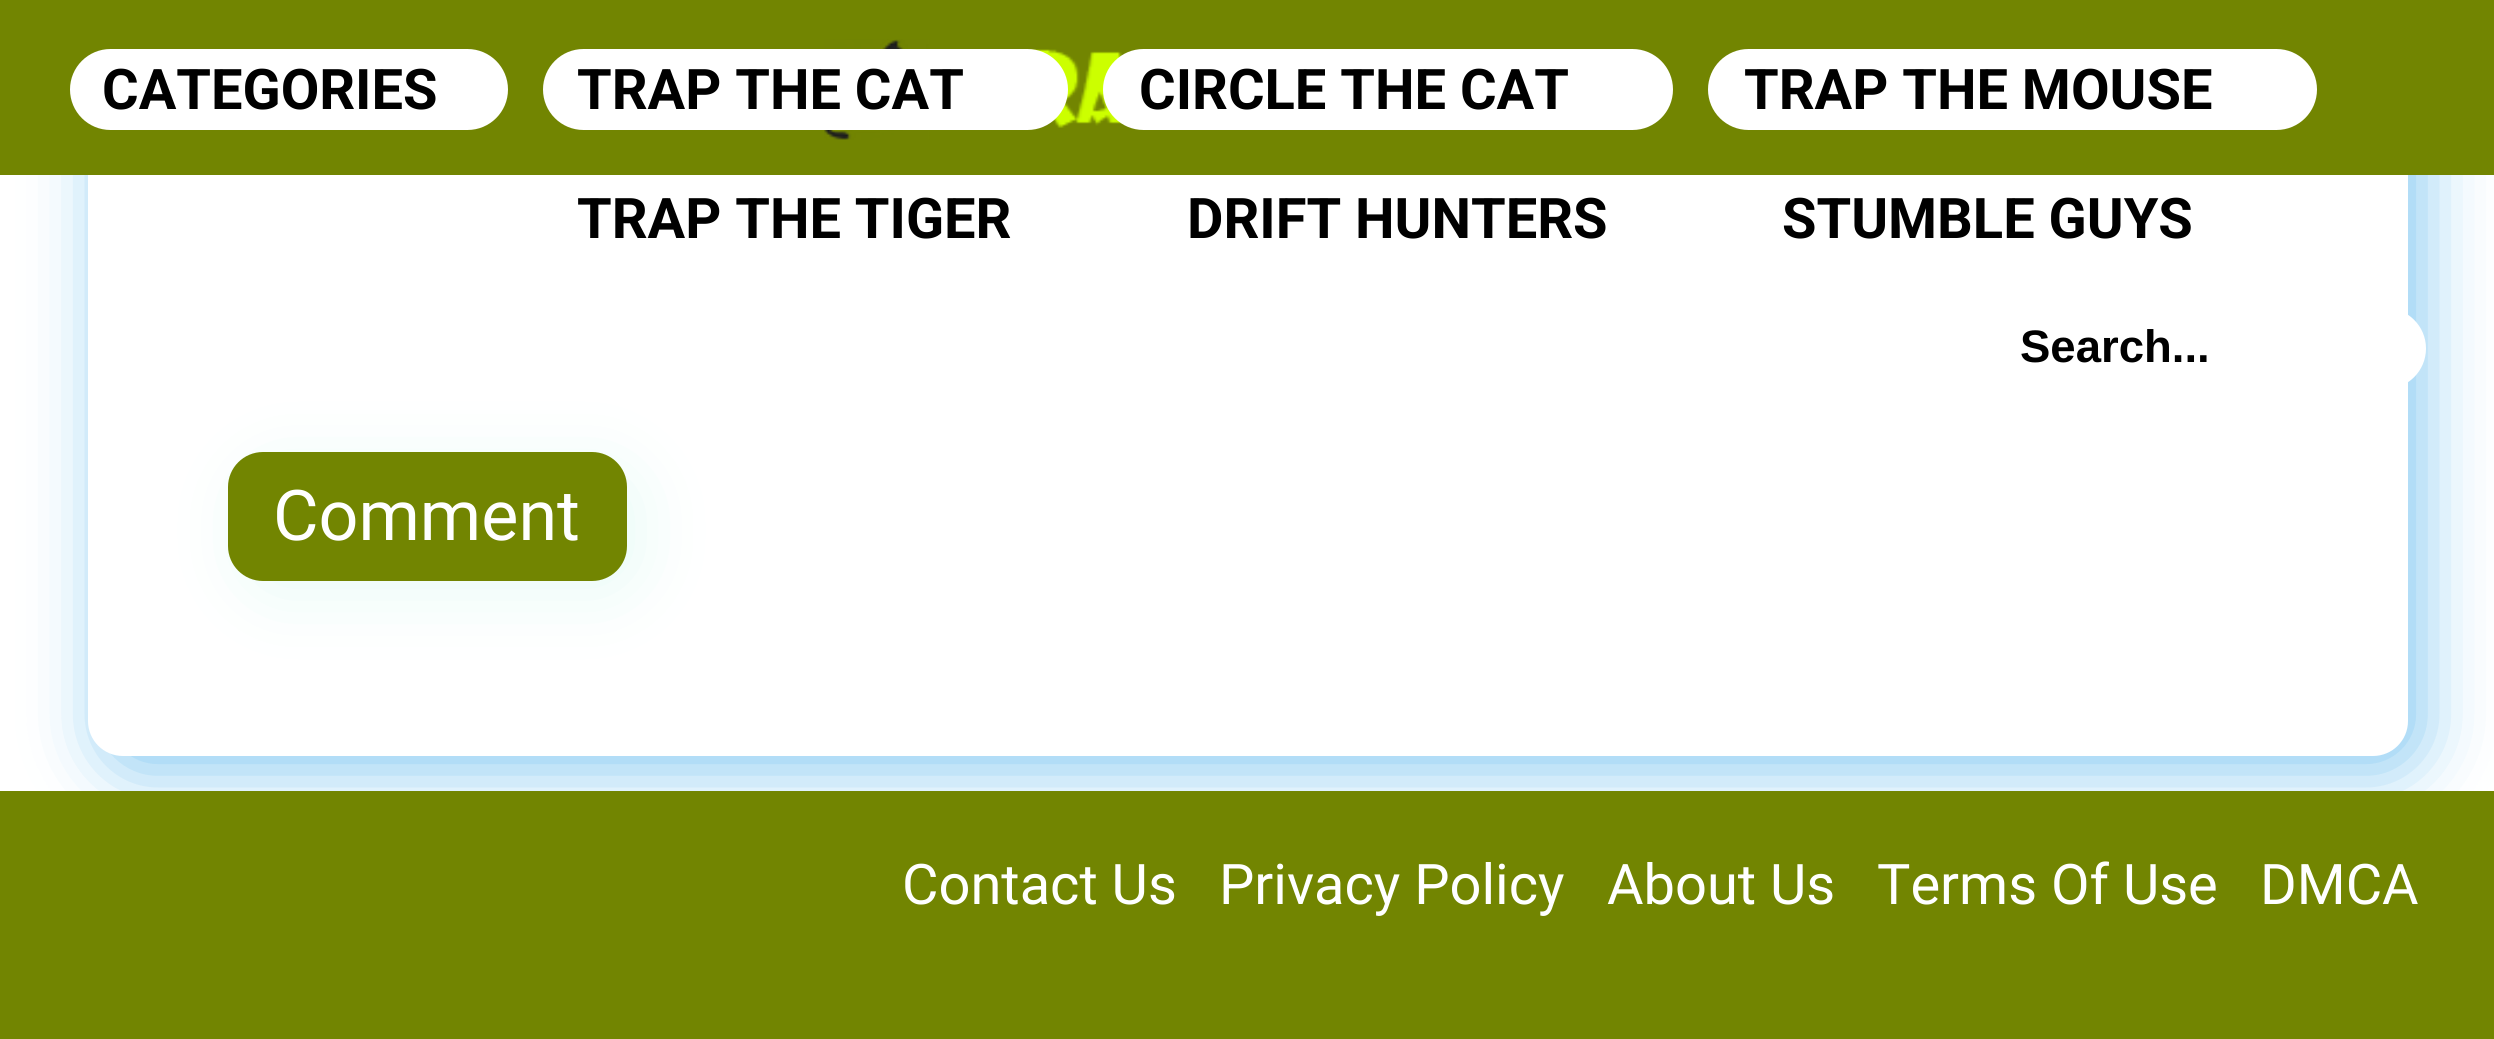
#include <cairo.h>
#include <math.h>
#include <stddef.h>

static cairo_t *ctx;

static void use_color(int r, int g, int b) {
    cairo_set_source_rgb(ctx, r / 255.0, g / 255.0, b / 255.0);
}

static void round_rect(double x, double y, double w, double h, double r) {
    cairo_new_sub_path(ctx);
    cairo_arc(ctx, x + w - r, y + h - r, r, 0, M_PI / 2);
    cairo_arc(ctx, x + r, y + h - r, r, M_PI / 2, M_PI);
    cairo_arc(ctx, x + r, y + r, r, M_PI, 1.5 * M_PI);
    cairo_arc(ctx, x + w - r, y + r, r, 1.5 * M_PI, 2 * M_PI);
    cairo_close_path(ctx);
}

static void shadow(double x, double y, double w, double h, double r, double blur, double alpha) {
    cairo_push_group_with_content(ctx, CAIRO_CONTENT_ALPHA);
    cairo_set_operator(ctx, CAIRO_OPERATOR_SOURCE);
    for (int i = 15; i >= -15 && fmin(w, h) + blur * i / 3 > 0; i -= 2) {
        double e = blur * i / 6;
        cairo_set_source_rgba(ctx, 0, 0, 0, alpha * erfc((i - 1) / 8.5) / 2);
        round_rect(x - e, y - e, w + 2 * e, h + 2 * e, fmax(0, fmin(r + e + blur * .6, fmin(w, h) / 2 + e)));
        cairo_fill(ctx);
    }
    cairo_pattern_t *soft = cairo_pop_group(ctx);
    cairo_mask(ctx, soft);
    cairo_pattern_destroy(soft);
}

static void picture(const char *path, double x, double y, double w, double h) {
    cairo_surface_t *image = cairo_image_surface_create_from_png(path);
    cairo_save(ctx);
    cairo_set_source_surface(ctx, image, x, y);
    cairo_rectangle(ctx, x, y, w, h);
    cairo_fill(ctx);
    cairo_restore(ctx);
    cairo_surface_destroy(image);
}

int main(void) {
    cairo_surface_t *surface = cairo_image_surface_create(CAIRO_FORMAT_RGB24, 2494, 1039);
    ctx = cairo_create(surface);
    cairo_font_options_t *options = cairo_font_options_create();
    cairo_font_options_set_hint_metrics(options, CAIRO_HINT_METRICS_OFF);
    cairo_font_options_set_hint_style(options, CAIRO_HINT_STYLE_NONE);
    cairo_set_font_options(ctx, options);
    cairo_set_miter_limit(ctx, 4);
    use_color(255, 255, 255);
    cairo_paint(ctx);
    use_color(114, 133, 1);
    cairo_rectangle(ctx, 0, 791, 2494, 248);
    cairo_fill(ctx);
    cairo_save(ctx);
    cairo_rectangle(ctx, 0, 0, 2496, 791);
    cairo_clip(ctx);
    use_color(10, 148, 228);
    shadow(102, -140, 2320, 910, 35, 35, 0.5);
    cairo_restore(ctx);
    use_color(255, 255, 255);
    round_rect(88, -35, 2320, 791, 35);
    cairo_fill(ctx);
    use_color(114, 133, 1);
    cairo_rectangle(ctx, 0, 0, 2494, 175);
    cairo_fill(ctx);
    use_color(255, 255, 255);
    round_rect(70, 49, 438, 81, 40.5);
    cairo_fill(ctx);
    cairo_select_font_face(ctx, "Roboto", CAIRO_FONT_SLANT_NORMAL, CAIRO_FONT_WEIGHT_BOLD);
    cairo_set_font_size(ctx, 56);
    use_color(0, 0, 0);
    cairo_move_to(ctx, 102, 109);
    cairo_show_text(ctx, "CATEGORIES");
    picture("img1.png", 824, 39, 319, 101);
    use_color(255, 255, 255);
    round_rect(543, 49, 525, 81, 40.5);
    cairo_fill(ctx);
    use_color(0, 0, 0);
    cairo_move_to(ctx, 577, 109);
    cairo_show_text(ctx, "TRAP THE CAT");
    use_color(255, 255, 255);
    round_rect(1103, 49, 570, 81, 40.5);
    cairo_fill(ctx);
    use_color(0, 0, 0);
    cairo_move_to(ctx, 1139, 109);
    cairo_show_text(ctx, "CIRCLE THE CAT");
    use_color(255, 255, 255);
    round_rect(1708, 49, 609, 81, 40.5);
    cairo_fill(ctx);
    use_color(0, 0, 0);
    cairo_move_to(ctx, 1744, 109);
    cairo_show_text(ctx, "TRAP THE MOUSE");
    cairo_move_to(ctx, 577, 238);
    cairo_show_text(ctx, "TRAP THE TIGER");
    cairo_move_to(ctx, 1187, 238);
    cairo_show_text(ctx, "DRIFT HUNTERS");
    cairo_move_to(ctx, 1782, 238);
    cairo_show_text(ctx, "STUMBLE GUYS");
    use_color(255, 255, 255);
    round_rect(1988, 308, 438, 81, 40.5);
    cairo_fill(ctx);
    cairo_select_font_face(ctx, "Liberation Sans", CAIRO_FONT_SLANT_NORMAL, CAIRO_FONT_WEIGHT_BOLD);
    cairo_set_font_size(ctx, 45.5);
    use_color(0, 0, 0);
    cairo_move_to(ctx, 2020, 362);
    cairo_show_text(ctx, "Search...");
    use_color(181, 242, 230);
    shadow(242, 466, 399, 129, 35, 35, 0.3);
    use_color(114, 133, 1);
    round_rect(228, 452, 399, 129, 35);
    cairo_fill(ctx);
    cairo_select_font_face(ctx, "Roboto", CAIRO_FONT_SLANT_NORMAL, CAIRO_FONT_WEIGHT_NORMAL);
    cairo_set_font_size(ctx, 70);
    use_color(255, 255, 255);
    cairo_move_to(ctx, 273, 540);
    cairo_show_text(ctx, "Comment");
    cairo_set_font_size(ctx, 56);
    cairo_move_to(ctx, 902, 904);
    cairo_show_text(ctx, "Contact Us");
    cairo_move_to(ctx, 1219, 904);
    cairo_show_text(ctx, "Privacy Policy");
    cairo_move_to(ctx, 1607, 904);
    cairo_show_text(ctx, "About Us");
    cairo_move_to(ctx, 1877, 904);
    cairo_show_text(ctx, "Terms Of Use");
    cairo_move_to(ctx, 2260, 904);
    cairo_show_text(ctx, "DMCA");
    cairo_surface_write_to_png(surface, "result.png");
    cairo_font_options_destroy(options);
    cairo_destroy(ctx);
    cairo_surface_destroy(surface);
    return 0;
}
